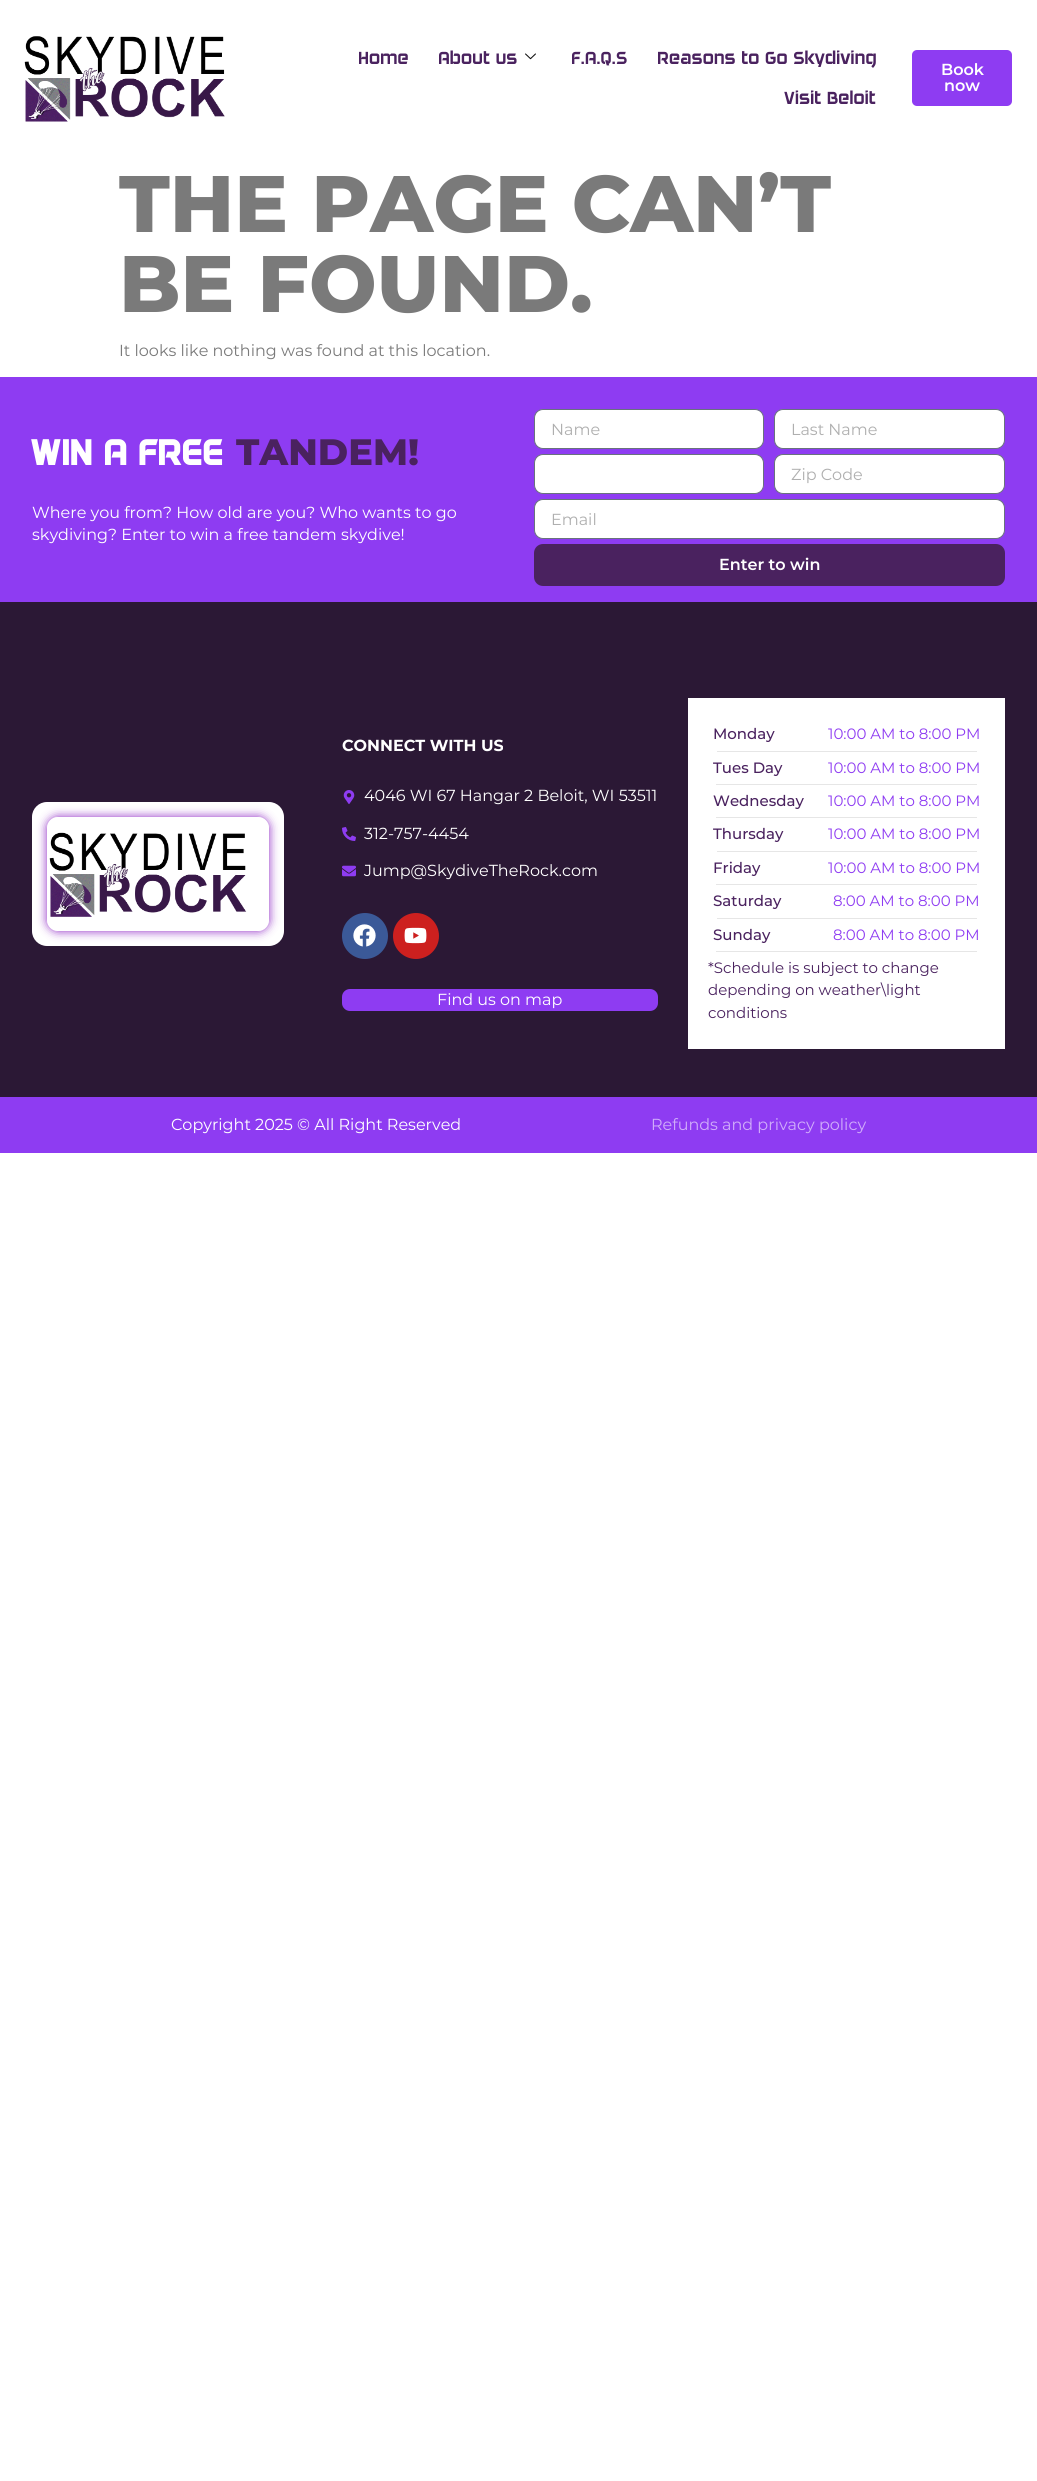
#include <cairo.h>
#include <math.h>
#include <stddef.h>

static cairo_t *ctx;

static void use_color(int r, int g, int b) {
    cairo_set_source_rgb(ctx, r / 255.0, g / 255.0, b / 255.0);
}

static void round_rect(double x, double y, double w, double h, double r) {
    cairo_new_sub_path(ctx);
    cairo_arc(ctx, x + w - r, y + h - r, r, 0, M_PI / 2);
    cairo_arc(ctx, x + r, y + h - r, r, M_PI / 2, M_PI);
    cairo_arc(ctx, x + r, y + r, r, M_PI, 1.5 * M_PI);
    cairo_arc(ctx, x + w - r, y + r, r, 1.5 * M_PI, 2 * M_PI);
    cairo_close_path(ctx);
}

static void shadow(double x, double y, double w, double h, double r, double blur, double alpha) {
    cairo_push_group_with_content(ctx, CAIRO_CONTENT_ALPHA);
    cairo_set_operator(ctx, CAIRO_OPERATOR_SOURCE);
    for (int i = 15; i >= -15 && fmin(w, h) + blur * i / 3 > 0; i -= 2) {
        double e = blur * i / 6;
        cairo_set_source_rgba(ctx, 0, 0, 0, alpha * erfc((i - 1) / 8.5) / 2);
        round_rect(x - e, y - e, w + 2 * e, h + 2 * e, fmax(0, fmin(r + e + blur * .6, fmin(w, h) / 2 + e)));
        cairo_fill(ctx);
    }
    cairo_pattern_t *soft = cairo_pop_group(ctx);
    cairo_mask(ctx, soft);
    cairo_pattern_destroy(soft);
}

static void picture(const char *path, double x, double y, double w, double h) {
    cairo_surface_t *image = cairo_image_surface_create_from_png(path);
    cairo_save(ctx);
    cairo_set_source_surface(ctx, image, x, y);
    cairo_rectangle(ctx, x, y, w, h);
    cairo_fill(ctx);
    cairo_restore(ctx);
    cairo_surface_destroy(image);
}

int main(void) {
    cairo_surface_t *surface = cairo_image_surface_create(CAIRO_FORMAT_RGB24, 1037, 2481);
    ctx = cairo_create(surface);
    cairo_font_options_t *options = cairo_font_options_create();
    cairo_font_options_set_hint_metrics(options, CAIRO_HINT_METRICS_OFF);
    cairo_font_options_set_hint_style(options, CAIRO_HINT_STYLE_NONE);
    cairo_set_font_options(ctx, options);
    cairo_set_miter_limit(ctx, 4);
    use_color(255, 255, 255);
    cairo_paint(ctx);
    picture("img1.png", 24, 36, 201, 86);
    cairo_select_font_face(ctx, "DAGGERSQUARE", CAIRO_FONT_SLANT_NORMAL, CAIRO_FONT_WEIGHT_NORMAL);
    cairo_set_font_size(ctx, 18);
    use_color(74, 34, 95);
    cairo_move_to(ctx, 359, 64);
    cairo_show_text(ctx, "Home");
    cairo_move_to(ctx, 439, 64);
    cairo_show_text(ctx, "About us");
    picture("img2.png", 525, 53, 11, 7);
    cairo_move_to(ctx, 572, 64);
    cairo_show_text(ctx, "F.A.Q.S");
    cairo_move_to(ctx, 658, 64);
    cairo_show_text(ctx, "Reasons to Go Skydiving");
    cairo_move_to(ctx, 785, 104);
    cairo_show_text(ctx, "Visit Beloit");
    use_color(142, 60, 242);
    round_rect(912, 50, 100, 56, 5);
    cairo_fill(ctx);
    cairo_select_font_face(ctx, "Montserrat SemiBold", CAIRO_FONT_SLANT_NORMAL, CAIRO_FONT_WEIGHT_NORMAL);
    cairo_set_font_size(ctx, 16);
    use_color(255, 255, 255);
    cairo_move_to(ctx, 941, 75);
    cairo_show_text(ctx, "Book");
    cairo_move_to(ctx, 944, 91);
    cairo_show_text(ctx, "now");
    cairo_select_font_face(ctx, "Montserrat ExtraBold", CAIRO_FONT_SLANT_NORMAL, CAIRO_FONT_WEIGHT_NORMAL);
    cairo_set_font_size(ctx, 80);
    use_color(122, 122, 122);
    cairo_move_to(ctx, 119, 232);
    cairo_show_text(ctx, "THE PAGE CAN’T");
    cairo_move_to(ctx, 119, 312);
    cairo_show_text(ctx, "BE FOUND.");
    cairo_select_font_face(ctx, "Montserrat", CAIRO_FONT_SLANT_NORMAL, CAIRO_FONT_WEIGHT_NORMAL);
    cairo_set_font_size(ctx, 16);
    cairo_move_to(ctx, 119, 356);
    cairo_show_text(ctx, "It looks like nothing was found at this location.");
    use_color(142, 60, 242);
    cairo_rectangle(ctx, 0, 377, 1037, 225);
    cairo_fill(ctx);
    cairo_select_font_face(ctx, "DAGGERSQUARE", CAIRO_FONT_SLANT_NORMAL, CAIRO_FONT_WEIGHT_BOLD);
    cairo_set_font_size(ctx, 36.75);
    use_color(255, 255, 255);
    cairo_move_to(ctx, 32, 465);
    cairo_show_text(ctx, "WIN A FREE");
    cairo_select_font_face(ctx, "Montserrat ExtraBold", CAIRO_FONT_SLANT_NORMAL, CAIRO_FONT_WEIGHT_NORMAL);
    use_color(74, 34, 95);
    cairo_move_to(ctx, 236, 465);
    cairo_show_text(ctx, "TANDEM!");
    cairo_select_font_face(ctx, "Montserrat", CAIRO_FONT_SLANT_NORMAL, CAIRO_FONT_WEIGHT_NORMAL);
    cairo_set_font_size(ctx, 16);
    use_color(255, 255, 255);
    cairo_move_to(ctx, 32, 518);
    cairo_show_text(ctx, "Where you from? How old are you? Who wants to go");
    cairo_move_to(ctx, 32, 540);
    cairo_show_text(ctx, "skydiving? Enter to win a free tandem skydive!");
    round_rect(534.5, 409.5, 229, 39, 8.5);
    cairo_fill_preserve(ctx);
    use_color(105, 114, 125);
    cairo_set_line_width(ctx, 1);
    cairo_stroke(ctx);
    use_color(175, 175, 175);
    cairo_move_to(ctx, 551, 435);
    cairo_show_text(ctx, "Name");
    use_color(255, 255, 255);
    round_rect(774.5, 409.5, 230, 39, 8.5);
    cairo_fill_preserve(ctx);
    use_color(105, 114, 125);
    cairo_stroke(ctx);
    use_color(175, 175, 175);
    cairo_move_to(ctx, 791, 435);
    cairo_show_text(ctx, "Last Name");
    use_color(255, 255, 255);
    round_rect(534.5, 454.5, 229, 39, 8.5);
    cairo_fill_preserve(ctx);
    use_color(105, 114, 125);
    cairo_stroke(ctx);
    use_color(255, 255, 255);
    round_rect(774.5, 454.5, 230, 39, 8.5);
    cairo_fill_preserve(ctx);
    use_color(105, 114, 125);
    cairo_stroke(ctx);
    use_color(175, 175, 175);
    cairo_move_to(ctx, 791, 480);
    cairo_show_text(ctx, "Zip Code");
    use_color(255, 255, 255);
    round_rect(534.5, 499.5, 470, 39, 8.5);
    cairo_fill_preserve(ctx);
    use_color(105, 114, 125);
    cairo_stroke(ctx);
    use_color(175, 175, 175);
    cairo_move_to(ctx, 551, 525);
    cairo_show_text(ctx, "Email");
    use_color(74, 34, 95);
    round_rect(534, 544, 471, 42, 9);
    cairo_fill(ctx);
    cairo_select_font_face(ctx, "Montserrat SemiBold", CAIRO_FONT_SLANT_NORMAL, CAIRO_FONT_WEIGHT_NORMAL);
    use_color(255, 255, 255);
    cairo_move_to(ctx, 719, 570);
    cairo_show_text(ctx, "Enter to win");
    use_color(43, 24, 53);
    cairo_rectangle(ctx, 0, 602, 1037, 495);
    cairo_fill(ctx);
    use_color(255, 255, 255);
    round_rect(32, 802, 252, 144, 15);
    cairo_fill(ctx);
    cairo_save(ctx);
    cairo_set_fill_rule(ctx, CAIRO_FILL_RULE_EVEN_ODD);
    cairo_new_path(ctx);
    cairo_move_to(ctx, 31, 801);
    cairo_line_to(ctx, 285, 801);
    cairo_line_to(ctx, 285, 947);
    cairo_line_to(ctx, 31, 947);
    cairo_close_path(ctx);
    cairo_move_to(ctx, 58, 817);
    cairo_line_to(ctx, 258, 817);
    cairo_curve_to(ctx, 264, 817, 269, 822, 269, 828);
    cairo_line_to(ctx, 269, 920);
    cairo_curve_to(ctx, 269, 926, 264, 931, 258, 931);
    cairo_line_to(ctx, 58, 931);
    cairo_curve_to(ctx, 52, 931, 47, 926, 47, 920);
    cairo_line_to(ctx, 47, 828);
    cairo_curve_to(ctx, 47, 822, 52, 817, 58, 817);
    cairo_close_path(ctx);
    cairo_clip(ctx);
    use_color(129, 15, 189);
    shadow(47, 817, 222, 114, 11, 5, 0.91);
    cairo_restore(ctx);
    picture("img3.png", 49, 832, 198, 85);
    cairo_select_font_face(ctx, "Montserrat", CAIRO_FONT_SLANT_NORMAL, CAIRO_FONT_WEIGHT_BOLD);
    cairo_move_to(ctx, 342, 751);
    cairo_show_text(ctx, "CONNECT WITH US");
    picture("img4.png", 343, 790, 12, 14);
    cairo_select_font_face(ctx, "Montserrat", CAIRO_FONT_SLANT_NORMAL, CAIRO_FONT_WEIGHT_NORMAL);
    cairo_move_to(ctx, 364, 801);
    cairo_show_text(ctx, "4046 WI 67 Hangar 2 Beloit, WI 53511");
    picture("img5.png", 342, 827, 14, 14);
    cairo_move_to(ctx, 364, 839);
    cairo_show_text(ctx, "312-757-4454");
    picture("img6.png", 342, 865, 14, 12);
    cairo_move_to(ctx, 364, 876);
    cairo_show_text(ctx, "Jump@SkydiveTheRock.com");
    use_color(59, 89, 152);
    cairo_new_path(ctx);
    cairo_arc(ctx, 365, 936, 23, 0, 2 * M_PI);
    cairo_fill(ctx);
    picture("img7.png", 353, 924, 23, 23);
    use_color(205, 32, 31);
    cairo_arc(ctx, 416, 936, 23, 0, 2 * M_PI);
    cairo_fill(ctx);
    picture("img8.png", 404, 927, 23, 17);
    use_color(142, 60, 242);
    round_rect(342, 989, 316, 22, 8);
    cairo_fill(ctx);
    use_color(255, 255, 255);
    cairo_move_to(ctx, 437, 1005);
    cairo_show_text(ctx, "Find us on map");
    cairo_rectangle(ctx, 688, 698, 317, 351);
    cairo_fill(ctx);
    use_color(230, 230, 230);
    cairo_rectangle(ctx, 717, 751, 260, 1);
    cairo_fill(ctx);
    cairo_select_font_face(ctx, "Montserrat Medium", CAIRO_FONT_SLANT_NORMAL, CAIRO_FONT_WEIGHT_NORMAL);
    cairo_set_font_size(ctx, 15);
    use_color(74, 34, 95);
    cairo_move_to(ctx, 713, 739);
    cairo_show_text(ctx, "Monday");
    cairo_select_font_face(ctx, "Montserrat", CAIRO_FONT_SLANT_NORMAL, CAIRO_FONT_WEIGHT_NORMAL);
    use_color(142, 60, 242);
    cairo_move_to(ctx, 828, 739);
    cairo_show_text(ctx, "10:00 AM to 8:00 PM");
    use_color(230, 230, 230);
    cairo_rectangle(ctx, 716, 784, 261, 1);
    cairo_fill(ctx);
    cairo_select_font_face(ctx, "Montserrat Medium", CAIRO_FONT_SLANT_NORMAL, CAIRO_FONT_WEIGHT_NORMAL);
    use_color(74, 34, 95);
    cairo_move_to(ctx, 713, 773);
    cairo_show_text(ctx, "Tues Day");
    cairo_select_font_face(ctx, "Montserrat", CAIRO_FONT_SLANT_NORMAL, CAIRO_FONT_WEIGHT_NORMAL);
    use_color(142, 60, 242);
    cairo_move_to(ctx, 828, 773);
    cairo_show_text(ctx, "10:00 AM to 8:00 PM");
    use_color(230, 230, 230);
    cairo_rectangle(ctx, 716, 817, 261, 1);
    cairo_fill(ctx);
    cairo_select_font_face(ctx, "Montserrat Medium", CAIRO_FONT_SLANT_NORMAL, CAIRO_FONT_WEIGHT_NORMAL);
    use_color(74, 34, 95);
    cairo_move_to(ctx, 713, 806);
    cairo_show_text(ctx, "Wednesday");
    cairo_select_font_face(ctx, "Montserrat", CAIRO_FONT_SLANT_NORMAL, CAIRO_FONT_WEIGHT_NORMAL);
    use_color(142, 60, 242);
    cairo_move_to(ctx, 828, 806);
    cairo_show_text(ctx, "10:00 AM to 8:00 PM");
    use_color(230, 230, 230);
    cairo_rectangle(ctx, 717, 851, 260, 1);
    cairo_fill(ctx);
    cairo_select_font_face(ctx, "Montserrat Medium", CAIRO_FONT_SLANT_NORMAL, CAIRO_FONT_WEIGHT_NORMAL);
    use_color(74, 34, 95);
    cairo_move_to(ctx, 713, 839);
    cairo_show_text(ctx, "Thursday");
    cairo_select_font_face(ctx, "Montserrat", CAIRO_FONT_SLANT_NORMAL, CAIRO_FONT_WEIGHT_NORMAL);
    use_color(142, 60, 242);
    cairo_move_to(ctx, 828, 839);
    cairo_show_text(ctx, "10:00 AM to 8:00 PM");
    use_color(230, 230, 230);
    cairo_rectangle(ctx, 716, 884, 261, 1);
    cairo_fill(ctx);
    cairo_select_font_face(ctx, "Montserrat Medium", CAIRO_FONT_SLANT_NORMAL, CAIRO_FONT_WEIGHT_NORMAL);
    use_color(74, 34, 95);
    cairo_move_to(ctx, 713, 873);
    cairo_show_text(ctx, "Friday");
    cairo_select_font_face(ctx, "Montserrat", CAIRO_FONT_SLANT_NORMAL, CAIRO_FONT_WEIGHT_NORMAL);
    use_color(142, 60, 242);
    cairo_move_to(ctx, 828, 873);
    cairo_show_text(ctx, "10:00 AM to 8:00 PM");
    use_color(230, 230, 230);
    cairo_rectangle(ctx, 717, 918, 260, 1);
    cairo_fill(ctx);
    cairo_select_font_face(ctx, "Montserrat Medium", CAIRO_FONT_SLANT_NORMAL, CAIRO_FONT_WEIGHT_NORMAL);
    use_color(74, 34, 95);
    cairo_move_to(ctx, 713, 906);
    cairo_show_text(ctx, "Saturday");
    cairo_select_font_face(ctx, "Montserrat", CAIRO_FONT_SLANT_NORMAL, CAIRO_FONT_WEIGHT_NORMAL);
    use_color(142, 60, 242);
    cairo_move_to(ctx, 833, 906);
    cairo_show_text(ctx, "8:00 AM to 8:00 PM");
    use_color(230, 230, 230);
    cairo_rectangle(ctx, 716, 951, 261, 1);
    cairo_fill(ctx);
    cairo_select_font_face(ctx, "Montserrat Medium", CAIRO_FONT_SLANT_NORMAL, CAIRO_FONT_WEIGHT_NORMAL);
    use_color(74, 34, 95);
    cairo_move_to(ctx, 713, 940);
    cairo_show_text(ctx, "Sunday");
    cairo_select_font_face(ctx, "Montserrat", CAIRO_FONT_SLANT_NORMAL, CAIRO_FONT_WEIGHT_NORMAL);
    use_color(142, 60, 242);
    cairo_move_to(ctx, 833, 940);
    cairo_show_text(ctx, "8:00 AM to 8:00 PM");
    use_color(74, 34, 95);
    cairo_move_to(ctx, 708, 973);
    cairo_show_text(ctx, "*Schedule is subject to change");
    cairo_move_to(ctx, 708, 995);
    cairo_show_text(ctx, "depending on weather\\light");
    cairo_move_to(ctx, 708, 1018);
    cairo_show_text(ctx, "conditions");
    use_color(142, 60, 242);
    cairo_rectangle(ctx, 0, 1097, 1037, 56);
    cairo_fill(ctx);
    cairo_set_font_size(ctx, 16);
    use_color(255, 255, 255);
    cairo_move_to(ctx, 171, 1130);
    cairo_show_text(ctx, "Copyright 2025 © All Right Reserved");
    use_color(208, 173, 250);
    cairo_move_to(ctx, 651, 1130);
    cairo_show_text(ctx, "Refunds and privacy policy");
    cairo_surface_write_to_png(surface, "result.png");
    cairo_font_options_destroy(options);
    cairo_destroy(ctx);
    cairo_surface_destroy(surface);
    return 0;
}
